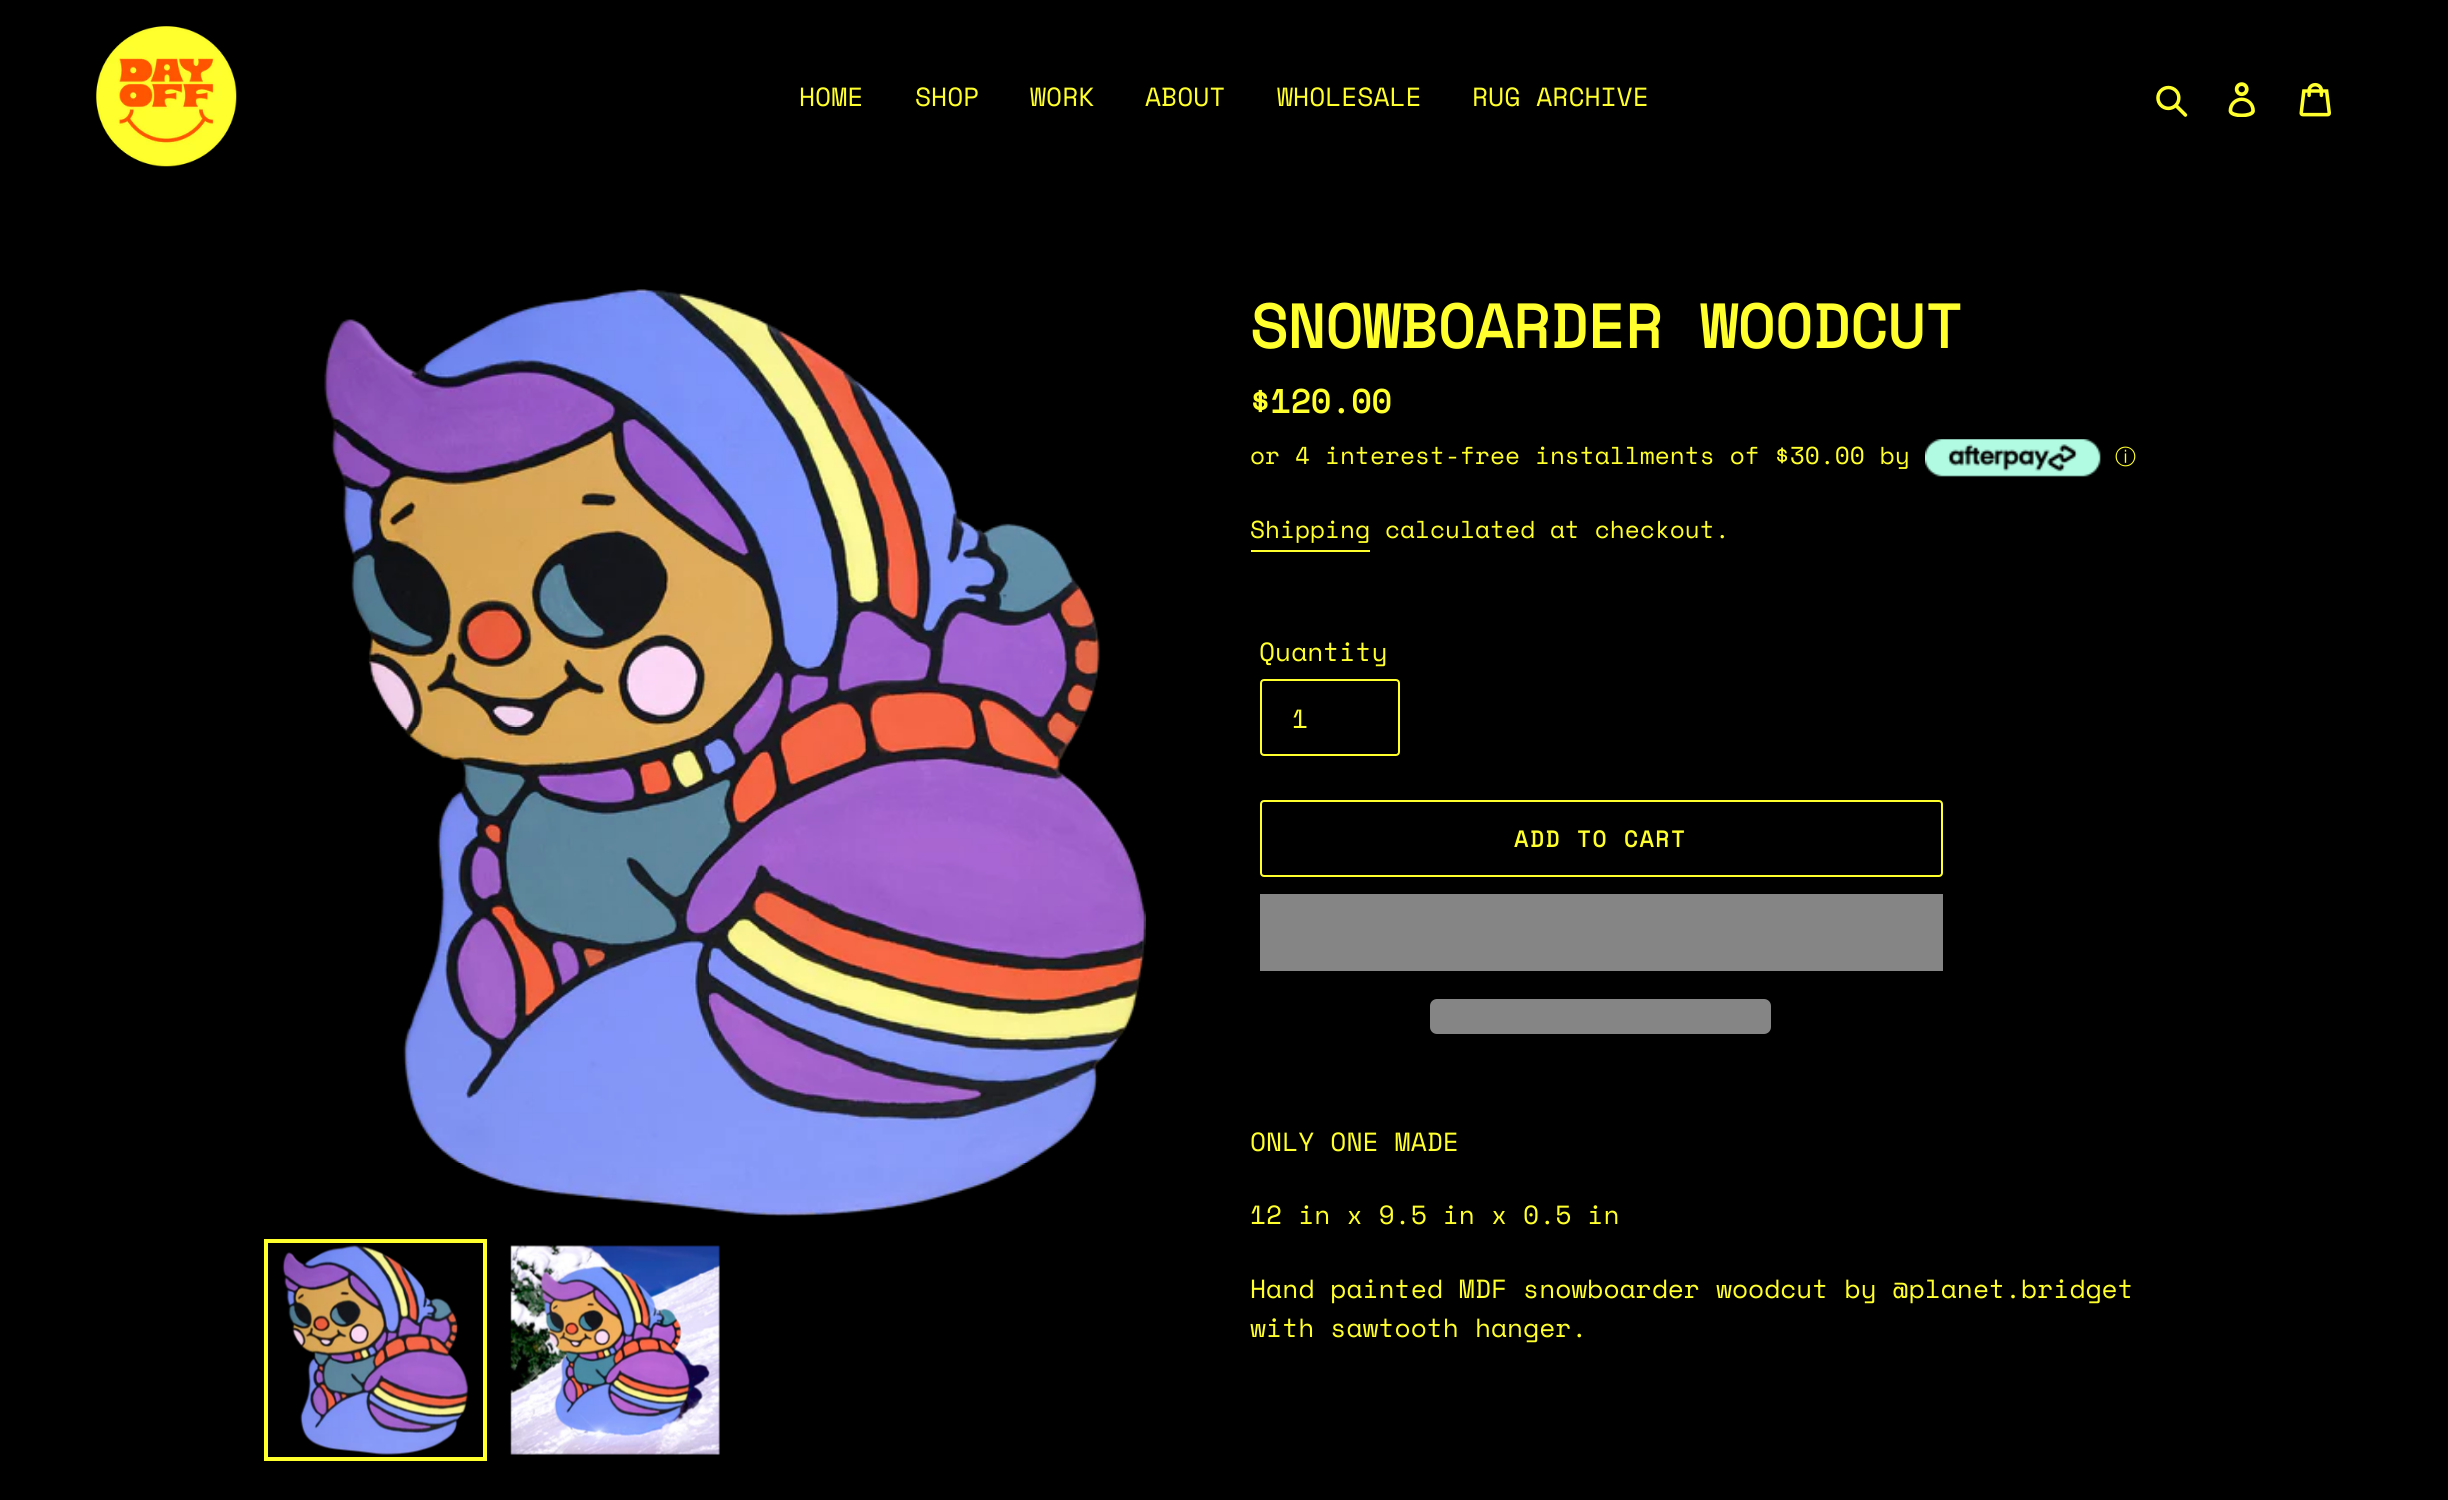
#include <cairo.h>
#include <math.h>
#include <stddef.h>

static cairo_t *ctx;

static void use_color(int r, int g, int b) {
    cairo_set_source_rgb(ctx, r / 255.0, g / 255.0, b / 255.0);
}

static void spaced_text(double x, double y, const char *s, double letter, double word) {
    cairo_move_to(ctx, x, y);
    while (*s) {
        char ch[5] = {0};
        int n = 0;
        do ch[n++] = *s++; while ((*s & 0xC0) == 0x80);
        cairo_show_text(ctx, ch);
        cairo_rel_move_to(ctx, letter + word * (*ch == ' '), 0);
    }
}

static void round_rect(double x, double y, double w, double h, double r) {
    cairo_new_sub_path(ctx);
    cairo_arc(ctx, x + w - r, y + h - r, r, 0, M_PI / 2);
    cairo_arc(ctx, x + r, y + h - r, r, M_PI / 2, M_PI);
    cairo_arc(ctx, x + r, y + r, r, M_PI, 1.5 * M_PI);
    cairo_arc(ctx, x + w - r, y + r, r, 1.5 * M_PI, 2 * M_PI);
    cairo_close_path(ctx);
}

static void picture(const char *path, double x, double y, double w, double h) {
    cairo_surface_t *image = cairo_image_surface_create_from_png(path);
    cairo_save(ctx);
    cairo_set_source_surface(ctx, image, x, y);
    cairo_rectangle(ctx, x, y, w, h);
    cairo_fill(ctx);
    cairo_restore(ctx);
    cairo_surface_destroy(image);
}

int main(void) {
    cairo_surface_t *surface = cairo_image_surface_create(CAIRO_FORMAT_RGB24, 2448, 1500);
    ctx = cairo_create(surface);
    cairo_font_options_t *options = cairo_font_options_create();
    cairo_font_options_set_hint_metrics(options, CAIRO_HINT_METRICS_OFF);
    cairo_font_options_set_hint_style(options, CAIRO_HINT_STYLE_NONE);
    cairo_set_font_options(ctx, options);
    cairo_set_miter_limit(ctx, 4);
    use_color(0, 0, 0);
    cairo_paint(ctx);
    picture("img1.png", 96, 26, 141, 141);
    cairo_select_font_face(ctx, "Space Mono", CAIRO_FONT_SLANT_NORMAL, CAIRO_FONT_WEIGHT_NORMAL);
    cairo_set_font_size(ctx, 26.25);
    use_color(255, 255, 45);
    cairo_move_to(ctx, 799, 106);
    cairo_show_text(ctx, "HOME");
    cairo_move_to(ctx, 915, 106);
    cairo_show_text(ctx, "SHOP");
    cairo_move_to(ctx, 1030, 106);
    cairo_show_text(ctx, "WORK");
    cairo_move_to(ctx, 1145, 106);
    cairo_show_text(ctx, "ABOUT");
    cairo_move_to(ctx, 1277, 106);
    cairo_show_text(ctx, "WHOLESALE");
    cairo_move_to(ctx, 1472, 106);
    cairo_show_text(ctx, "RUG ARCHIVE");
    picture("img2.png", 2156, 85, 32, 32);
    picture("img3.png", 2228, 82, 27, 35);
    picture("img4.png", 2299, 82, 32, 35);
    picture("img5.png", 324, 289, 822, 927);
    cairo_rectangle(ctx, 266, 1241, 219, 218);
    cairo_set_line_width(ctx, 4);
    cairo_stroke(ctx);
    picture("img6.png", 282, 1245, 187, 210);
    picture("img7.png", 510, 1245, 210, 210);
    cairo_select_font_face(ctx, "Space Mono", CAIRO_FONT_SLANT_NORMAL, CAIRO_FONT_WEIGHT_BOLD);
    cairo_set_font_size(ctx, 61.25);
    cairo_move_to(ctx, 1250, 348);
    cairo_show_text(ctx, "SNOWBOARDER WOODCUT");
    cairo_set_font_size(ctx, 33);
    cairo_move_to(ctx, 1250, 413);
    cairo_show_text(ctx, "$120.00");
    cairo_select_font_face(ctx, "Space Mono", CAIRO_FONT_SLANT_NORMAL, CAIRO_FONT_WEIGHT_NORMAL);
    cairo_set_font_size(ctx, 24.5);
    cairo_move_to(ctx, 1250, 464);
    cairo_show_text(ctx, "or 4 interest-free installments of $30.00 by");
    picture("img8.png", 1925, 439, 176, 38);
    cairo_select_font_face(ctx, "WenQuanYi Zen Hei Medium", CAIRO_FONT_SLANT_NORMAL, CAIRO_FONT_WEIGHT_NORMAL);
    cairo_set_font_size(ctx, 21);
    cairo_move_to(ctx, 2115, 464);
    cairo_show_text(ctx, "ⓘ");
    cairo_select_font_face(ctx, "Space Mono", CAIRO_FONT_SLANT_NORMAL, CAIRO_FONT_WEIGHT_NORMAL);
    cairo_set_font_size(ctx, 24.5);
    cairo_move_to(ctx, 1250, 538);
    cairo_show_text(ctx, "Shipping calculated at checkout.");
    cairo_rectangle(ctx, 1251, 550, 119, 2);
    cairo_fill(ctx);
    cairo_set_font_size(ctx, 26.25);
    cairo_move_to(ctx, 1259, 661);
    cairo_show_text(ctx, "Quantity");
    round_rect(1261, 680, 138, 75, 3);
    cairo_set_line_width(ctx, 2);
    cairo_stroke(ctx);
    cairo_move_to(ctx, 1292, 728);
    cairo_show_text(ctx, "1");
    round_rect(1261, 801, 681, 75, 3);
    cairo_stroke(ctx);
    cairo_select_font_face(ctx, "Space Mono", CAIRO_FONT_SLANT_NORMAL, CAIRO_FONT_WEIGHT_BOLD);
    cairo_set_font_size(ctx, 22.75);
    spaced_text(1514, 847, "ADD TO CART", 1.75, 0);
    use_color(133, 133, 133);
    cairo_rectangle(ctx, 1260, 894, 683, 77);
    cairo_fill(ctx);
    round_rect(1430, 999, 341, 35, 7);
    cairo_fill(ctx);
    cairo_select_font_face(ctx, "Space Mono", CAIRO_FONT_SLANT_NORMAL, CAIRO_FONT_WEIGHT_NORMAL);
    cairo_set_font_size(ctx, 26.25);
    use_color(255, 255, 45);
    cairo_move_to(ctx, 1250, 1151);
    cairo_show_text(ctx, "ONLY ONE MADE");
    cairo_move_to(ctx, 1250, 1224);
    cairo_show_text(ctx, "12 in x 9.5 in x 0.5 in");
    cairo_move_to(ctx, 1250, 1298);
    cairo_show_text(ctx, "Hand painted MDF snowboarder woodcut by @planet.bridget");
    cairo_move_to(ctx, 1250, 1337);
    cairo_show_text(ctx, "with sawtooth hanger.");
    cairo_surface_write_to_png(surface, "result.png");
    cairo_font_options_destroy(options);
    cairo_destroy(ctx);
    cairo_surface_destroy(surface);
    return 0;
}
